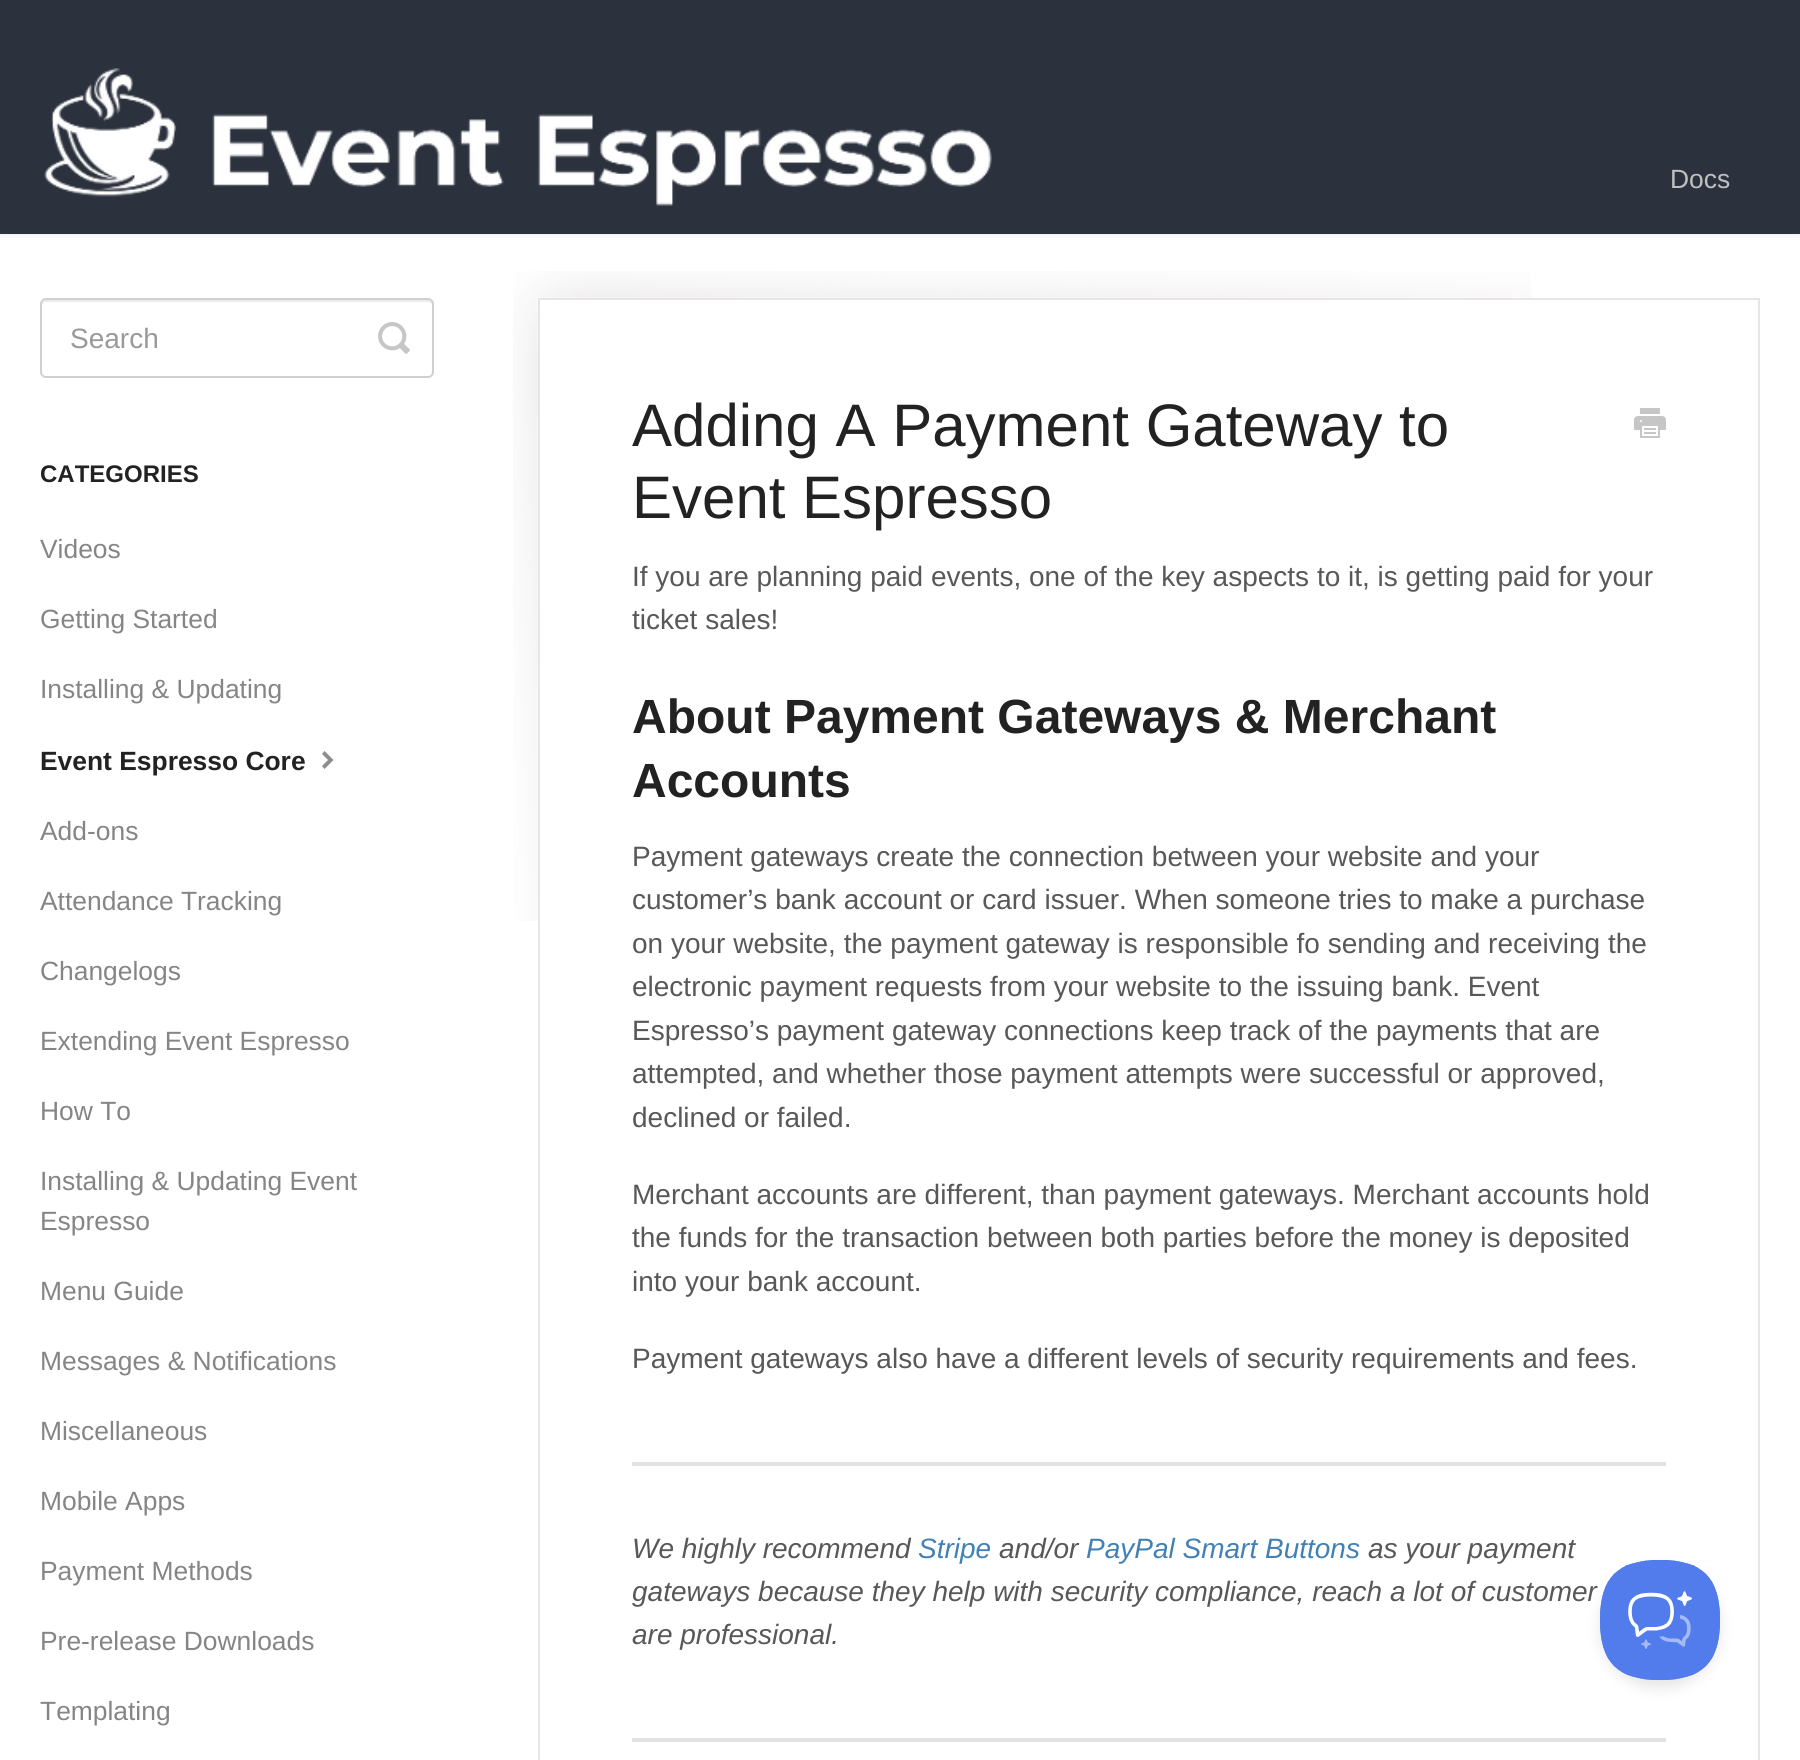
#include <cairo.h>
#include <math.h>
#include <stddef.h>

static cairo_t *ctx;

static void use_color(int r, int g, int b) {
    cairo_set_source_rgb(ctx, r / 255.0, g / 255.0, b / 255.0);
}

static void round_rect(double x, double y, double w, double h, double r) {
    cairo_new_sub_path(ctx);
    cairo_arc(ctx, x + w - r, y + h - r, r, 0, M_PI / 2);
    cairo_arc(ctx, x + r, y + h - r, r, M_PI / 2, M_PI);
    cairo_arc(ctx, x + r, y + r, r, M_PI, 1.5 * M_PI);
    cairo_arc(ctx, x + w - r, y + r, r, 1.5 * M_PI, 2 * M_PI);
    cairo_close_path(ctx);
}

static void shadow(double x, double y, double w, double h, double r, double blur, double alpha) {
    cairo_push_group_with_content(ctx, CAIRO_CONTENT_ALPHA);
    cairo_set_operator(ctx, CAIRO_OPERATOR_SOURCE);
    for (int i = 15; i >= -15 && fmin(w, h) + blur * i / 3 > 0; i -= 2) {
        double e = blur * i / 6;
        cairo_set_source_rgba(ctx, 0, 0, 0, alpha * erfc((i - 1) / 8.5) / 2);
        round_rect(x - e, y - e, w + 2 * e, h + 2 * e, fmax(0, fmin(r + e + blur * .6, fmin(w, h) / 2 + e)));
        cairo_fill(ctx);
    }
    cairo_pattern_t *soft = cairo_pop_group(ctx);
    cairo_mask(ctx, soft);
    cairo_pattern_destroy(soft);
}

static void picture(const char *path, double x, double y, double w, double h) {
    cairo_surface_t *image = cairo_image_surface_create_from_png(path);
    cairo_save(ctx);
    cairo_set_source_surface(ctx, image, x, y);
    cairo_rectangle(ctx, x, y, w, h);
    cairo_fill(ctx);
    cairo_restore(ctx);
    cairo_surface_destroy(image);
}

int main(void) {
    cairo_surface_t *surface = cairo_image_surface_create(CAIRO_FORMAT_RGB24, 1800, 1760);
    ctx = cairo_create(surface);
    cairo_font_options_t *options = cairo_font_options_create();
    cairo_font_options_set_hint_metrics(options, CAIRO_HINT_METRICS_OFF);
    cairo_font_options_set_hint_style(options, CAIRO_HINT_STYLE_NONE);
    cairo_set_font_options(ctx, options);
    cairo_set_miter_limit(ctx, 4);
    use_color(255, 255, 255);
    cairo_paint(ctx);
    use_color(0, 0, 0);
    shadow(0, 2, 1800, 234, 0, 4, 0.07);
    use_color(44, 50, 61);
    cairo_rectangle(ctx, 0, 0, 1800, 234);
    cairo_fill(ctx);
    picture("img1.png", 44, 68, 948, 138);
    cairo_select_font_face(ctx, "Liberation Sans", CAIRO_FONT_SLANT_NORMAL, CAIRO_FONT_WEIGHT_NORMAL);
    cairo_set_font_size(ctx, 26.4);
    use_color(192, 192, 192);
    cairo_move_to(ctx, 1670, 188);
    cairo_show_text(ctx, "Docs");
    use_color(236, 236, 236);
    cairo_new_path(ctx);
    cairo_move_to(ctx, 46, 302);
    cairo_line_to(ctx, 428, 302);
    cairo_curve_to(ctx, 430, 302, 432, 304, 432, 306);
    cairo_line_to(ctx, 432, 304);
    cairo_curve_to(ctx, 432, 302, 430, 300, 428, 300);
    cairo_line_to(ctx, 46, 300);
    cairo_curve_to(ctx, 44, 300, 42, 302, 42, 304);
    cairo_line_to(ctx, 42, 306);
    cairo_curve_to(ctx, 42, 304, 44, 302, 46, 302);
    cairo_close_path(ctx);
    cairo_fill(ctx);
    round_rect(41, 299, 392, 78, 5);
    use_color(208, 208, 208);
    cairo_stroke(ctx);
    cairo_set_font_size(ctx, 28);
    use_color(153, 153, 153);
    cairo_move_to(ctx, 70, 348);
    cairo_show_text(ctx, "Search");
    picture("img2.png", 378, 322, 32, 32);
    cairo_select_font_face(ctx, "Liberation Sans", CAIRO_FONT_SLANT_NORMAL, CAIRO_FONT_WEIGHT_BOLD);
    cairo_set_font_size(ctx, 24);
    use_color(34, 34, 34);
    cairo_move_to(ctx, 40, 482);
    cairo_show_text(ctx, "CATEGORIES");
    cairo_select_font_face(ctx, "Liberation Sans", CAIRO_FONT_SLANT_NORMAL, CAIRO_FONT_WEIGHT_NORMAL);
    cairo_set_font_size(ctx, 26.4);
    use_color(133, 133, 133);
    cairo_move_to(ctx, 40, 558);
    cairo_show_text(ctx, "Videos");
    cairo_move_to(ctx, 40, 628);
    cairo_show_text(ctx, "Getting Started");
    cairo_move_to(ctx, 40, 698);
    cairo_show_text(ctx, "Installing & Updating");
    cairo_select_font_face(ctx, "Liberation Sans", CAIRO_FONT_SLANT_NORMAL, CAIRO_FONT_WEIGHT_BOLD);
    use_color(34, 34, 34);
    cairo_move_to(ctx, 40, 770);
    cairo_show_text(ctx, "Event Espresso Core");
    use_color(141, 141, 141);
    cairo_new_path(ctx);
    cairo_move_to(ctx, 324.5, 751);
    cairo_line_to(ctx, 322, 754);
    cairo_line_to(ctx, 328, 760);
    cairo_line_to(ctx, 322, 766);
    cairo_line_to(ctx, 324.5, 769);
    cairo_line_to(ctx, 333.5, 760);
    cairo_close_path(ctx);
    cairo_fill(ctx);
    cairo_select_font_face(ctx, "Liberation Sans", CAIRO_FONT_SLANT_NORMAL, CAIRO_FONT_WEIGHT_NORMAL);
    use_color(133, 133, 133);
    cairo_move_to(ctx, 40, 840);
    cairo_show_text(ctx, "Add-ons");
    cairo_move_to(ctx, 40, 910);
    cairo_show_text(ctx, "Attendance Tracking");
    cairo_move_to(ctx, 40, 980);
    cairo_show_text(ctx, "Changelogs");
    cairo_move_to(ctx, 40, 1050);
    cairo_show_text(ctx, "Extending Event Espresso");
    cairo_move_to(ctx, 40, 1120);
    cairo_show_text(ctx, "How To");
    cairo_move_to(ctx, 40, 1190);
    cairo_show_text(ctx, "Installing & Updating Event");
    cairo_move_to(ctx, 40, 1230);
    cairo_show_text(ctx, "Espresso");
    cairo_move_to(ctx, 40, 1300);
    cairo_show_text(ctx, "Menu Guide");
    cairo_move_to(ctx, 40, 1370);
    cairo_show_text(ctx, "Messages & Notifications");
    cairo_move_to(ctx, 40, 1440);
    cairo_show_text(ctx, "Miscellaneous");
    cairo_move_to(ctx, 40, 1510);
    cairo_show_text(ctx, "Mobile Apps");
    cairo_move_to(ctx, 40, 1580);
    cairo_show_text(ctx, "Payment Methods");
    cairo_move_to(ctx, 40, 1650);
    cairo_show_text(ctx, "Pre-release Downloads");
    cairo_move_to(ctx, 40, 1720);
    cairo_show_text(ctx, "Templating");
    picture("img3.png", 513, 271, 1018, 650);
    cairo_rectangle(ctx, 539, 299, 1220, 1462);
    use_color(233, 229, 229);
    cairo_stroke(ctx);
    cairo_set_font_size(ctx, 60);
    use_color(34, 34, 34);
    cairo_move_to(ctx, 632, 446);
    cairo_show_text(ctx, "Adding A Payment Gateway to");
    cairo_move_to(ctx, 632, 518);
    cairo_show_text(ctx, "Event Espresso");
    picture("img4.png", 1634, 408, 32, 30);
    cairo_set_font_size(ctx, 28);
    use_color(88, 88, 88);
    cairo_move_to(ctx, 632, 586);
    cairo_show_text(ctx, "If you are planning paid events, one of the key aspects to it, is getting paid for your");
    cairo_move_to(ctx, 632, 629);
    cairo_show_text(ctx, "ticket sales!");
    cairo_select_font_face(ctx, "Liberation Sans", CAIRO_FONT_SLANT_NORMAL, CAIRO_FONT_WEIGHT_BOLD);
    cairo_set_font_size(ctx, 48);
    use_color(34, 34, 34);
    cairo_move_to(ctx, 632, 733);
    cairo_show_text(ctx, "About Payment Gateways & Merchant");
    cairo_move_to(ctx, 632, 797);
    cairo_show_text(ctx, "Accounts");
    cairo_select_font_face(ctx, "Liberation Sans", CAIRO_FONT_SLANT_NORMAL, CAIRO_FONT_WEIGHT_NORMAL);
    cairo_set_font_size(ctx, 28);
    use_color(88, 88, 88);
    cairo_move_to(ctx, 632, 866);
    cairo_show_text(ctx, "Payment gateways create the connection between your website and your");
    cairo_move_to(ctx, 632, 909);
    cairo_show_text(ctx, "customer’s bank account or card issuer. When someone tries to make a purchase");
    cairo_move_to(ctx, 632, 953);
    cairo_show_text(ctx, "on your website, the payment gateway is responsible fo sending and receiving the");
    cairo_move_to(ctx, 632, 996);
    cairo_show_text(ctx, "electronic payment requests from your website to the issuing bank. Event");
    cairo_move_to(ctx, 632, 1040);
    cairo_show_text(ctx, "Espresso’s payment gateway connections keep track of the payments that are");
    cairo_move_to(ctx, 632, 1083);
    cairo_show_text(ctx, "attempted, and whether those payment attempts were successful or approved,");
    cairo_move_to(ctx, 632, 1127);
    cairo_show_text(ctx, "declined or failed.");
    cairo_move_to(ctx, 632, 1204);
    cairo_show_text(ctx, "Merchant accounts are different, than payment gateways. Merchant accounts hold");
    cairo_move_to(ctx, 632, 1247);
    cairo_show_text(ctx, "the funds for the transaction between both parties before the money is deposited");
    cairo_move_to(ctx, 632, 1291);
    cairo_show_text(ctx, "into your bank account.");
    cairo_move_to(ctx, 632, 1368);
    cairo_show_text(ctx, "Payment gateways also have a different levels of security requirements and fees.");
    use_color(226, 226, 226);
    cairo_rectangle(ctx, 632, 1462, 1034, 4);
    cairo_fill(ctx);
    cairo_select_font_face(ctx, "Liberation Sans", CAIRO_FONT_SLANT_ITALIC, CAIRO_FONT_WEIGHT_NORMAL);
    use_color(88, 88, 88);
    cairo_move_to(ctx, 632, 1558);
    cairo_show_text(ctx, "We highly recommend");
    use_color(67, 129, 181);
    cairo_move_to(ctx, 918, 1558);
    cairo_show_text(ctx, "Stripe");
    use_color(88, 88, 88);
    cairo_move_to(ctx, 999, 1558);
    cairo_show_text(ctx, "and/or");
    use_color(67, 129, 181);
    cairo_move_to(ctx, 1086, 1558);
    cairo_show_text(ctx, "PayPal Smart Buttons");
    use_color(88, 88, 88);
    cairo_move_to(ctx, 1368, 1558);
    cairo_show_text(ctx, "as your payment");
    cairo_move_to(ctx, 632, 1601);
    cairo_show_text(ctx, "gateways because they help with security compliance, reach a lot of customer");
    cairo_move_to(ctx, 632, 1644);
    cairo_show_text(ctx, "are professional.");
    use_color(226, 226, 226);
    cairo_rectangle(ctx, 632, 1738, 1034, 4);
    cairo_fill(ctx);
    use_color(0, 0, 0);
    shadow(1600, 1568, 120, 120, 60, 7, 0.1);
    picture("img5.png", 1600, 1560, 120, 120);
    cairo_surface_write_to_png(surface, "result.png");
    cairo_font_options_destroy(options);
    cairo_destroy(ctx);
    cairo_surface_destroy(surface);
    return 0;
}
